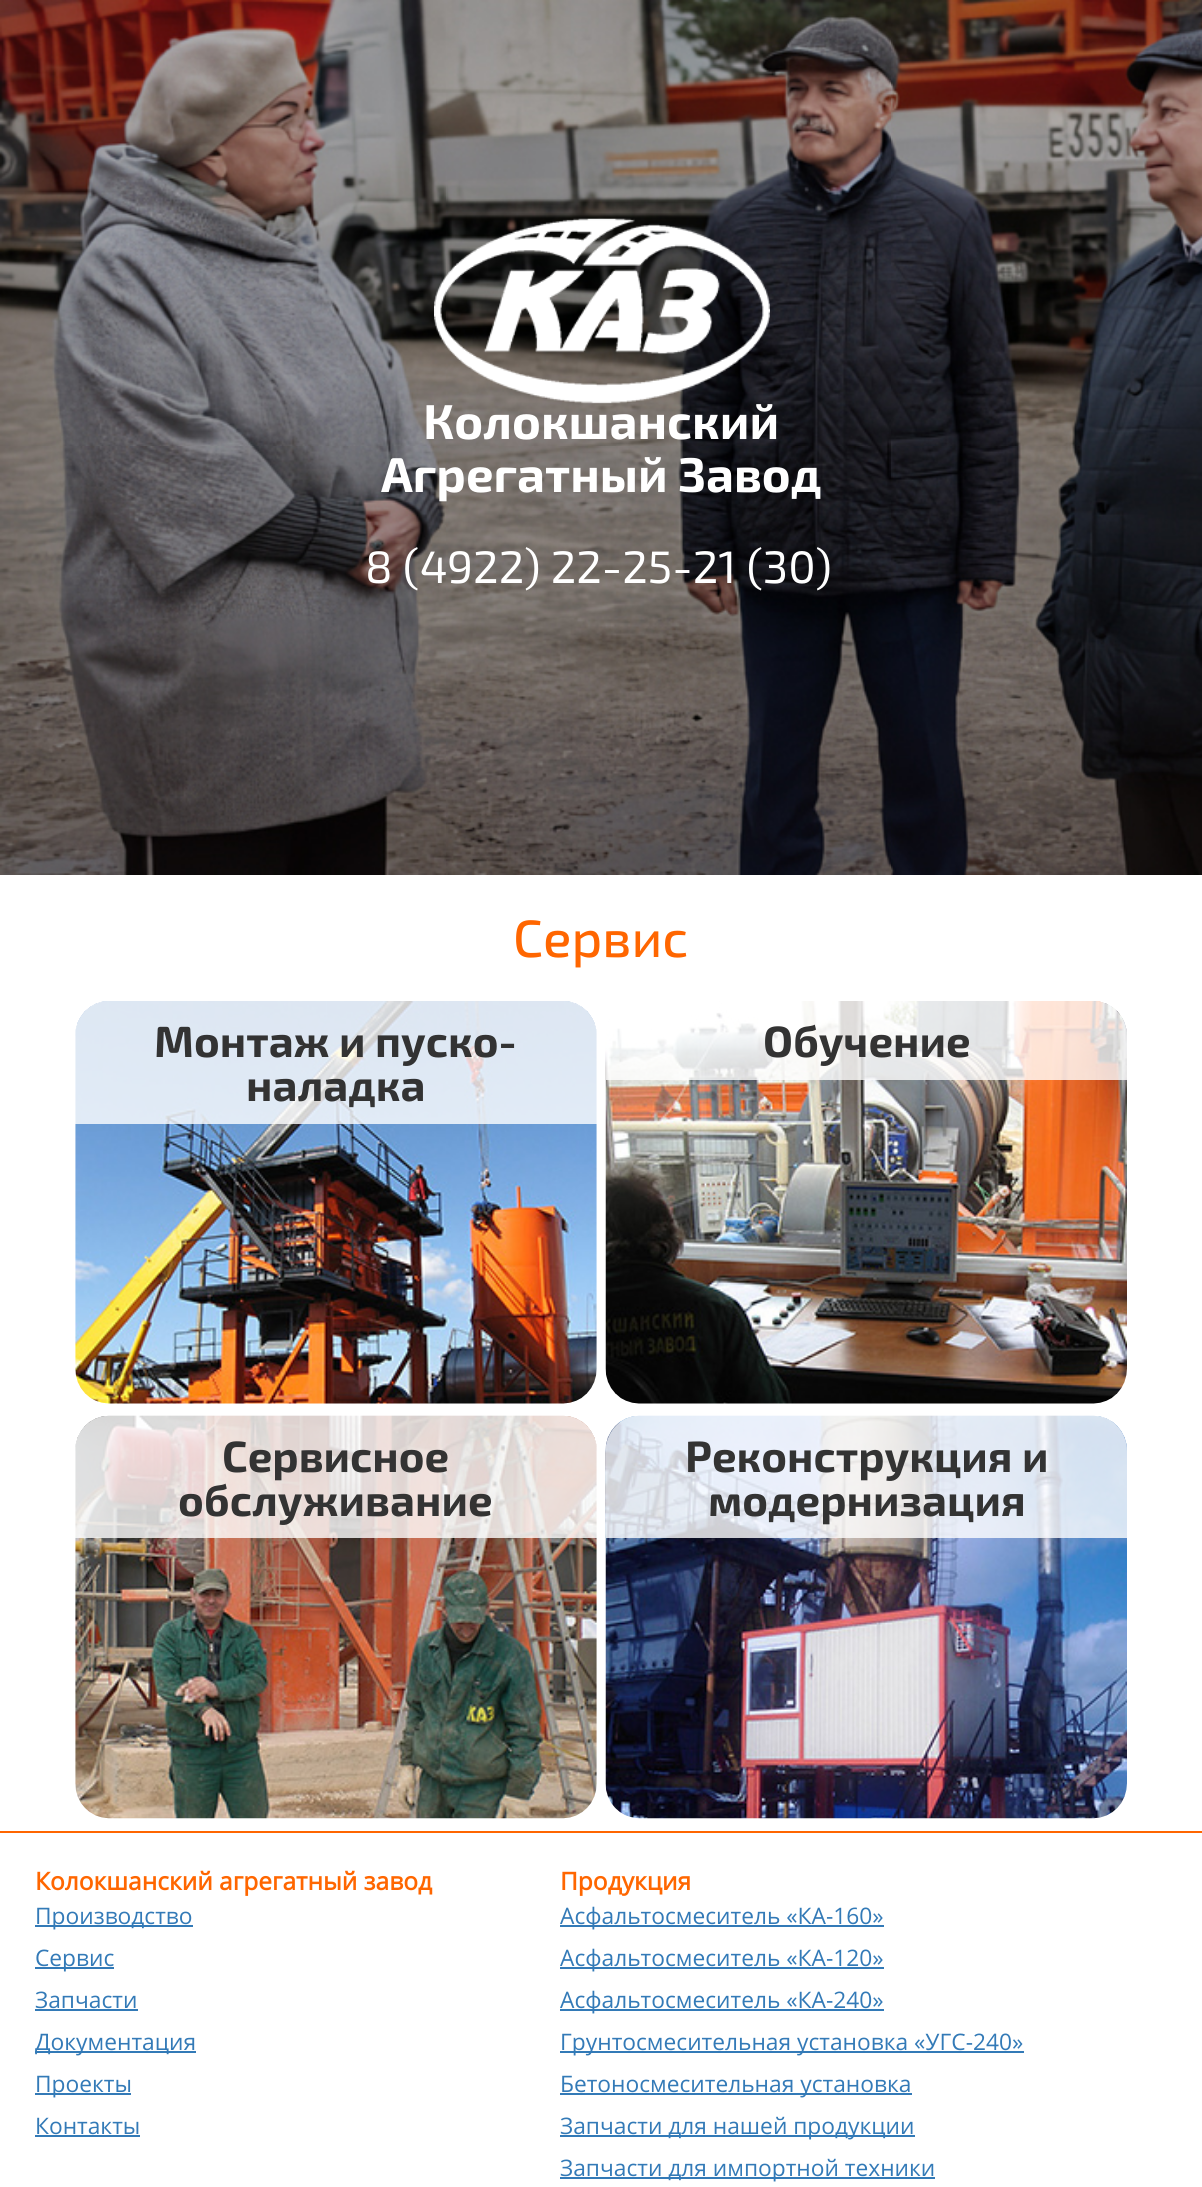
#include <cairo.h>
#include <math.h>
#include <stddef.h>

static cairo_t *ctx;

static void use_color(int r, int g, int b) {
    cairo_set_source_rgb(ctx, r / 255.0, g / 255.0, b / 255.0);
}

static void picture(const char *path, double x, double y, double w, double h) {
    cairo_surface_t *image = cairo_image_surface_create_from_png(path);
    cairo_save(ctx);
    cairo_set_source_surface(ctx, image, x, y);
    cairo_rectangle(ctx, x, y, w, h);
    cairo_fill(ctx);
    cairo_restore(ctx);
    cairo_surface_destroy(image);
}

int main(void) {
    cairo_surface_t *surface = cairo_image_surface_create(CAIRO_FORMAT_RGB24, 1202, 2187);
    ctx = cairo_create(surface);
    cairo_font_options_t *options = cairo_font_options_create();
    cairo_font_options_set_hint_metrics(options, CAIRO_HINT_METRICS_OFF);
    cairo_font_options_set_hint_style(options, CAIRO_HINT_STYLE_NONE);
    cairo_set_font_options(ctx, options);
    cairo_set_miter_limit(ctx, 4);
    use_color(255, 255, 255);
    cairo_paint(ctx);
    picture("img1.png", 0, 0, 1202, 875);
    picture("img2.png", 434, 218, 336, 186);
    cairo_select_font_face(ctx, "Exo 2", CAIRO_FONT_SLANT_NORMAL, CAIRO_FONT_WEIGHT_BOLD);
    cairo_set_font_size(ctx, 49);
    use_color(255, 255, 255);
    cairo_move_to(ctx, 423, 439);
    cairo_show_text(ctx, "Колокшанский");
    cairo_move_to(ctx, 381, 492);
    cairo_show_text(ctx, "Агрегатный Завод");
    cairo_select_font_face(ctx, "Exo 2", CAIRO_FONT_SLANT_NORMAL, CAIRO_FONT_WEIGHT_NORMAL);
    cairo_set_font_size(ctx, 45.5);
    cairo_move_to(ctx, 365, 583);
    cairo_show_text(ctx, "8 (4922) 22-25-21 (30)");
    cairo_select_font_face(ctx, "Exo 2 Medium", CAIRO_FONT_SLANT_NORMAL, CAIRO_FONT_WEIGHT_NORMAL);
    cairo_set_font_size(ctx, 52.5);
    use_color(255, 102, 0);
    cairo_move_to(ctx, 513, 957);
    cairo_show_text(ctx, "Сервис");
    picture("img3.png", 75, 1001, 522, 403);
    cairo_set_source_rgba(ctx, 1, 1, 1, 0.8);
    cairo_new_path(ctx);
    cairo_move_to(ctx, 108, 1001);
    cairo_line_to(ctx, 564, 1001);
    cairo_curve_to(ctx, 582, 1001, 597, 1017, 597, 1036);
    cairo_line_to(ctx, 597, 1124);
    cairo_line_to(ctx, 75, 1124);
    cairo_line_to(ctx, 75, 1036);
    cairo_curve_to(ctx, 75, 1017, 90, 1001, 108, 1001);
    cairo_close_path(ctx);
    cairo_fill(ctx);
    cairo_select_font_face(ctx, "Exo 2", CAIRO_FONT_SLANT_NORMAL, CAIRO_FONT_WEIGHT_BOLD);
    cairo_set_font_size(ctx, 43.75);
    use_color(51, 51, 51);
    cairo_move_to(ctx, 154, 1057);
    cairo_show_text(ctx, "Монтаж и пуско-");
    cairo_move_to(ctx, 246, 1101);
    cairo_show_text(ctx, "наладка");
    picture("img4.png", 605, 1001, 522, 403);
    cairo_set_source_rgba(ctx, 1, 1, 1, 0.8);
    cairo_new_path(ctx);
    cairo_move_to(ctx, 639, 1001);
    cairo_curve_to(ctx, 622, 1001, 609, 1013, 606, 1030);
    cairo_line_to(ctx, 606, 1080);
    cairo_line_to(ctx, 1127, 1080);
    cairo_line_to(ctx, 1127, 1036);
    cairo_curve_to(ctx, 1127, 1017, 1112, 1001, 1094, 1001);
    cairo_close_path(ctx);
    cairo_fill(ctx);
    use_color(51, 51, 51);
    cairo_move_to(ctx, 763, 1057);
    cairo_show_text(ctx, "Обучение");
    picture("img5.png", 75, 1415, 522, 404);
    cairo_set_source_rgba(ctx, 1, 1, 1, 0.8);
    cairo_new_path(ctx);
    cairo_move_to(ctx, 75, 1538);
    cairo_line_to(ctx, 75, 1451);
    cairo_curve_to(ctx, 75, 1433, 88, 1418, 105, 1416);
    cairo_line_to(ctx, 567, 1416);
    cairo_curve_to(ctx, 584, 1418, 597, 1433, 597, 1451);
    cairo_line_to(ctx, 597, 1538);
    cairo_close_path(ctx);
    cairo_fill(ctx);
    use_color(51, 51, 51);
    cairo_move_to(ctx, 222, 1472);
    cairo_show_text(ctx, "Сервисное");
    cairo_move_to(ctx, 178, 1516);
    cairo_show_text(ctx, "обслуживание");
    picture("img6.png", 605, 1415, 522, 404);
    cairo_set_source_rgba(ctx, 1, 1, 1, 0.8);
    cairo_new_path(ctx);
    cairo_move_to(ctx, 606, 1445);
    cairo_curve_to(ctx, 609, 1430, 620, 1418, 635, 1416);
    cairo_line_to(ctx, 1098, 1416);
    cairo_curve_to(ctx, 1114, 1418, 1127, 1433, 1127, 1451);
    cairo_line_to(ctx, 1127, 1538);
    cairo_line_to(ctx, 606, 1538);
    cairo_close_path(ctx);
    cairo_fill(ctx);
    use_color(51, 51, 51);
    cairo_move_to(ctx, 685, 1472);
    cairo_show_text(ctx, "Реконструкция и");
    cairo_move_to(ctx, 708, 1516);
    cairo_show_text(ctx, "модернизация");
    use_color(255, 102, 0);
    cairo_rectangle(ctx, 0, 1831, 1202, 2);
    cairo_fill(ctx);
    cairo_select_font_face(ctx, "Open Sans", CAIRO_FONT_SLANT_NORMAL, CAIRO_FONT_WEIGHT_BOLD);
    cairo_set_font_size(ctx, 24.5);
    cairo_move_to(ctx, 35, 1890);
    cairo_show_text(ctx, "Колокшанский агрегатный завод");
    use_color(51, 122, 183);
    cairo_rectangle(ctx, 35, 1925, 158, 2);
    cairo_fill(ctx);
    cairo_select_font_face(ctx, "Open Sans", CAIRO_FONT_SLANT_NORMAL, CAIRO_FONT_WEIGHT_NORMAL);
    cairo_set_font_size(ctx, 22.75);
    cairo_move_to(ctx, 35, 1924);
    cairo_show_text(ctx, "Производство");
    cairo_rectangle(ctx, 35, 1967, 79, 2);
    cairo_fill(ctx);
    cairo_move_to(ctx, 35, 1966);
    cairo_show_text(ctx, "Сервис");
    cairo_move_to(ctx, 35, 2008);
    cairo_show_text(ctx, "Запчасти");
    cairo_rectangle(ctx, 35, 2009, 103, 2);
    cairo_fill(ctx);
    cairo_rectangle(ctx, 35, 2051, 161, 2);
    cairo_fill(ctx);
    cairo_move_to(ctx, 35, 2050);
    cairo_show_text(ctx, "Документация");
    cairo_rectangle(ctx, 35, 2093, 96, 2);
    cairo_fill(ctx);
    cairo_move_to(ctx, 35, 2092);
    cairo_show_text(ctx, "Проекты");
    cairo_move_to(ctx, 35, 2134);
    cairo_show_text(ctx, "Контакты");
    cairo_rectangle(ctx, 35, 2135, 105, 2);
    cairo_fill(ctx);
    cairo_select_font_face(ctx, "Open Sans", CAIRO_FONT_SLANT_NORMAL, CAIRO_FONT_WEIGHT_BOLD);
    cairo_set_font_size(ctx, 24.5);
    use_color(255, 102, 0);
    cairo_move_to(ctx, 560, 1890);
    cairo_show_text(ctx, "Продукция");
    use_color(51, 122, 183);
    cairo_rectangle(ctx, 560, 1925, 324, 2);
    cairo_fill(ctx);
    cairo_select_font_face(ctx, "Open Sans", CAIRO_FONT_SLANT_NORMAL, CAIRO_FONT_WEIGHT_NORMAL);
    cairo_set_font_size(ctx, 22.75);
    cairo_move_to(ctx, 560, 1924);
    cairo_show_text(ctx, "Асфальтосмеситель «КА-160»");
    cairo_rectangle(ctx, 560, 1967, 324, 2);
    cairo_fill(ctx);
    cairo_move_to(ctx, 560, 1966);
    cairo_show_text(ctx, "Асфальтосмеситель «КА-120»");
    cairo_rectangle(ctx, 560, 2009, 324, 2);
    cairo_fill(ctx);
    cairo_move_to(ctx, 560, 2008);
    cairo_show_text(ctx, "Асфальтосмеситель «КА-240»");
    cairo_rectangle(ctx, 560, 2051, 464, 2);
    cairo_fill(ctx);
    cairo_move_to(ctx, 560, 2050);
    cairo_show_text(ctx, "Грунтосмесительная установка «УГС-240»");
    cairo_rectangle(ctx, 560, 2093, 352, 2);
    cairo_fill(ctx);
    cairo_move_to(ctx, 560, 2092);
    cairo_show_text(ctx, "Бетоносмесительная установка");
    cairo_rectangle(ctx, 560, 2135, 355, 2);
    cairo_fill(ctx);
    cairo_move_to(ctx, 560, 2134);
    cairo_show_text(ctx, "Запчасти для нашей продукции");
    cairo_rectangle(ctx, 560, 2177, 375, 2);
    cairo_fill(ctx);
    cairo_move_to(ctx, 560, 2176);
    cairo_show_text(ctx, "Запчасти для импортной техники");
    cairo_surface_write_to_png(surface, "result.png");
    cairo_font_options_destroy(options);
    cairo_destroy(ctx);
    cairo_surface_destroy(surface);
    return 0;
}
